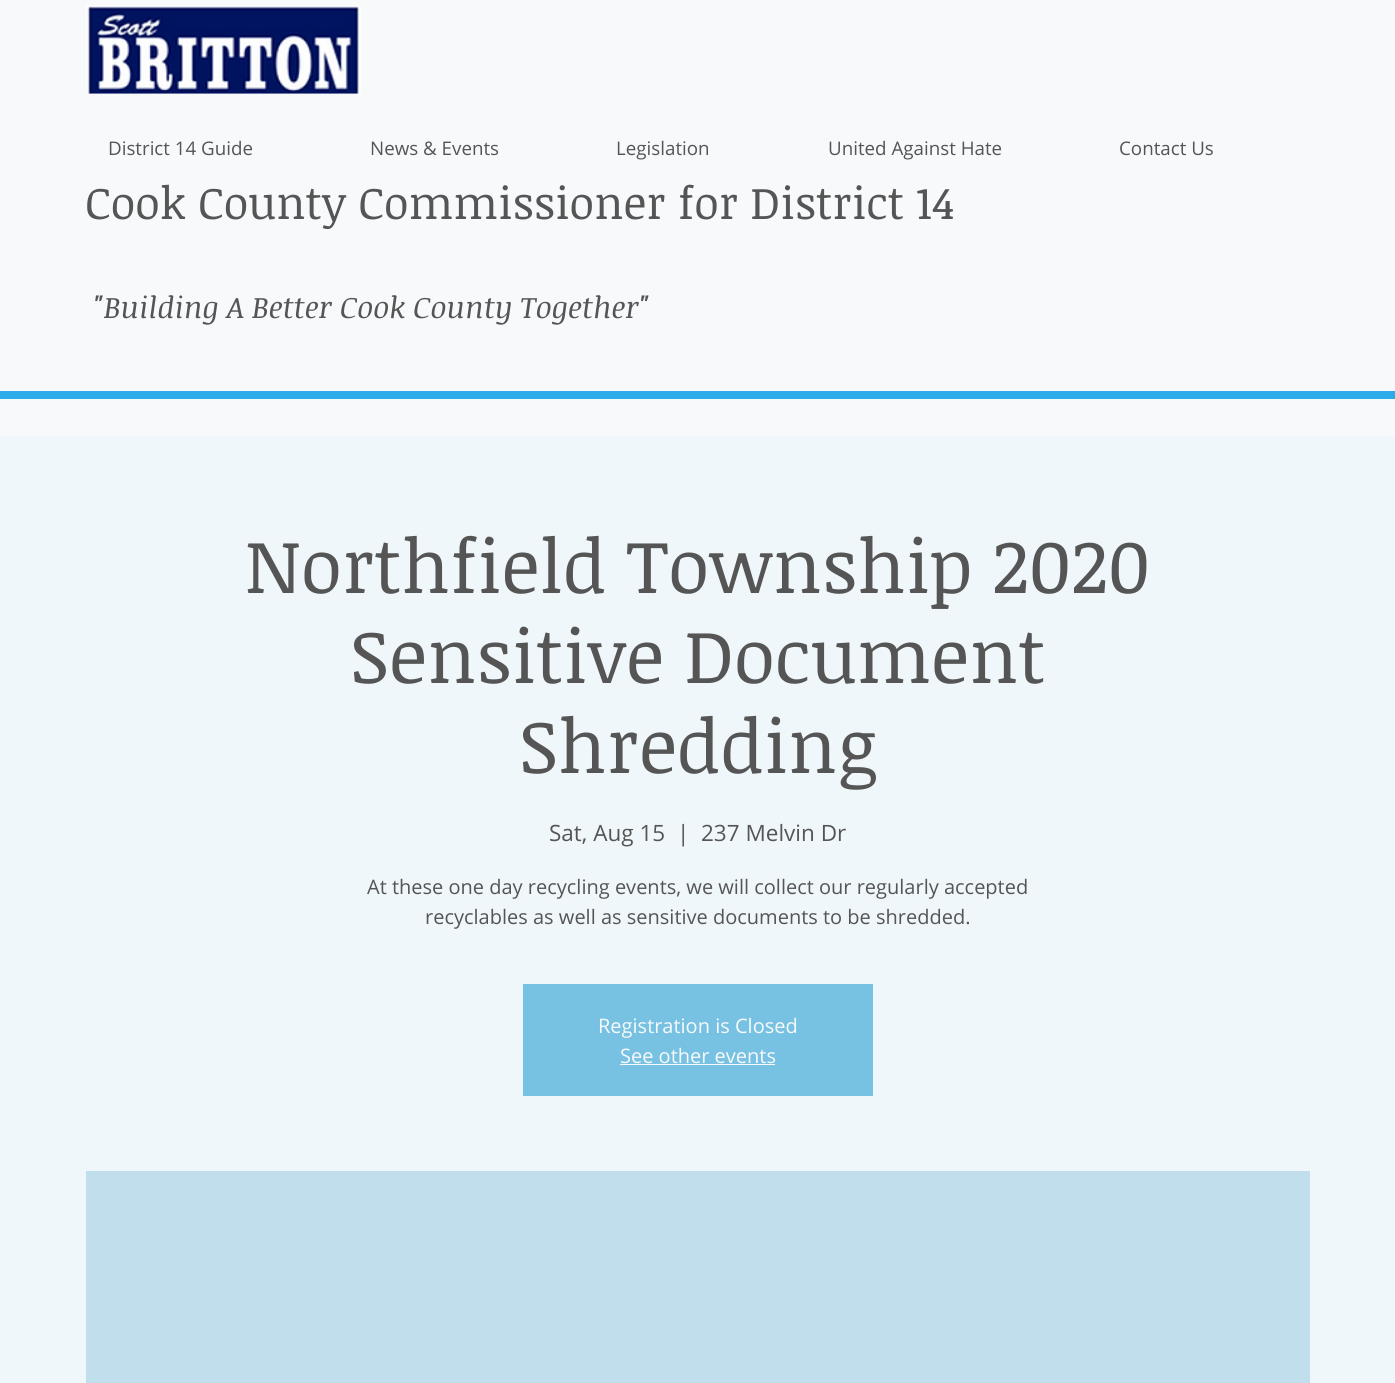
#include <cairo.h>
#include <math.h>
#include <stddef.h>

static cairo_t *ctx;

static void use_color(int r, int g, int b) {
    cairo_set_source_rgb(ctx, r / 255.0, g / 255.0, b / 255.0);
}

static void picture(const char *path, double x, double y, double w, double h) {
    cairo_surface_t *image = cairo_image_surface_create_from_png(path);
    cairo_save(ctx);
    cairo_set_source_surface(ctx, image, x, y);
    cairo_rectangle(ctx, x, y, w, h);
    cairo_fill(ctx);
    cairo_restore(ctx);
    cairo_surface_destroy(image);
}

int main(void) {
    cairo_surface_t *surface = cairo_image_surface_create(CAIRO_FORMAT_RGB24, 1395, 1383);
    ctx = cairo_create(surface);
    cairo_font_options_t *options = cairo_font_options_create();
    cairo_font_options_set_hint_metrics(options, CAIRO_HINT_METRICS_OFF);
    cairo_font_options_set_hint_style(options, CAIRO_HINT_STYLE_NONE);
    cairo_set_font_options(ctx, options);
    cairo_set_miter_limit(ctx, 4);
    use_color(248, 249, 251);
    cairo_paint(ctx);
    picture("img1.png", 86, 5, 275, 89);
    cairo_select_font_face(ctx, "Open Sans", CAIRO_FONT_SLANT_NORMAL, CAIRO_FONT_WEIGHT_NORMAL);
    cairo_set_font_size(ctx, 18.75);
    use_color(85, 85, 85);
    cairo_move_to(ctx, 108, 155);
    cairo_show_text(ctx, "District 14 Guide");
    cairo_move_to(ctx, 370, 155);
    cairo_show_text(ctx, "News & Events");
    cairo_move_to(ctx, 616, 155);
    cairo_show_text(ctx, "Legislation");
    cairo_move_to(ctx, 828, 155);
    cairo_show_text(ctx, "United Against Hate");
    cairo_move_to(ctx, 1119, 155);
    cairo_show_text(ctx, "Contact Us");
    cairo_select_font_face(ctx, "Noticia Text", CAIRO_FONT_SLANT_NORMAL, CAIRO_FONT_WEIGHT_NORMAL);
    cairo_set_font_size(ctx, 45);
    cairo_move_to(ctx, 85, 219);
    cairo_show_text(ctx, "Cook County Commissioner for District 14");
    cairo_select_font_face(ctx, "Noticia Text", CAIRO_FONT_SLANT_ITALIC, CAIRO_FONT_WEIGHT_NORMAL);
    cairo_set_font_size(ctx, 30);
    cairo_move_to(ctx, 93, 318);
    cairo_show_text(ctx, "\"Building A Better Cook County Together\"");
    use_color(44, 171, 234);
    cairo_rectangle(ctx, 0, 391, 1395, 8);
    cairo_fill(ctx);
    use_color(239, 247, 251);
    cairo_rectangle(ctx, 0, 436, 1395, 947);
    cairo_fill(ctx);
    cairo_select_font_face(ctx, "Noticia Text", CAIRO_FONT_SLANT_NORMAL, CAIRO_FONT_WEIGHT_NORMAL);
    cairo_set_font_size(ctx, 75);
    use_color(85, 85, 85);
    cairo_move_to(ctx, 245, 593);
    cairo_show_text(ctx, "Northfield Township 2020");
    cairo_move_to(ctx, 350, 683);
    cairo_show_text(ctx, "Sensitive Document");
    cairo_move_to(ctx, 519, 773);
    cairo_show_text(ctx, "Shredding");
    cairo_select_font_face(ctx, "Open Sans", CAIRO_FONT_SLANT_NORMAL, CAIRO_FONT_WEIGHT_NORMAL);
    cairo_set_font_size(ctx, 22.5);
    cairo_move_to(ctx, 549, 841);
    cairo_show_text(ctx, "Sat, Aug 15");
    cairo_move_to(ctx, 677, 841);
    cairo_show_text(ctx, "|");
    cairo_move_to(ctx, 701, 841);
    cairo_show_text(ctx, "237 Melvin Dr");
    cairo_set_font_size(ctx, 20);
    cairo_move_to(ctx, 367, 894);
    cairo_show_text(ctx, "At these one day recycling events, we will collect our regularly accepted");
    cairo_move_to(ctx, 425, 924);
    cairo_show_text(ctx, "recyclables as well as sensitive documents to be shredded.");
    use_color(119, 193, 226);
    cairo_rectangle(ctx, 523, 984, 350, 112);
    cairo_fill(ctx);
    use_color(248, 249, 251);
    cairo_move_to(ctx, 598, 1033);
    cairo_show_text(ctx, "Registration is Closed");
    cairo_move_to(ctx, 620, 1063);
    cairo_show_text(ctx, "See other events");
    cairo_rectangle(ctx, 620, 1064, 155, 1);
    cairo_fill(ctx);
    use_color(193, 222, 237);
    cairo_rectangle(ctx, 86, 1171, 1224, 212);
    cairo_fill(ctx);
    cairo_surface_write_to_png(surface, "result.png");
    cairo_font_options_destroy(options);
    cairo_destroy(ctx);
    cairo_surface_destroy(surface);
    return 0;
}
